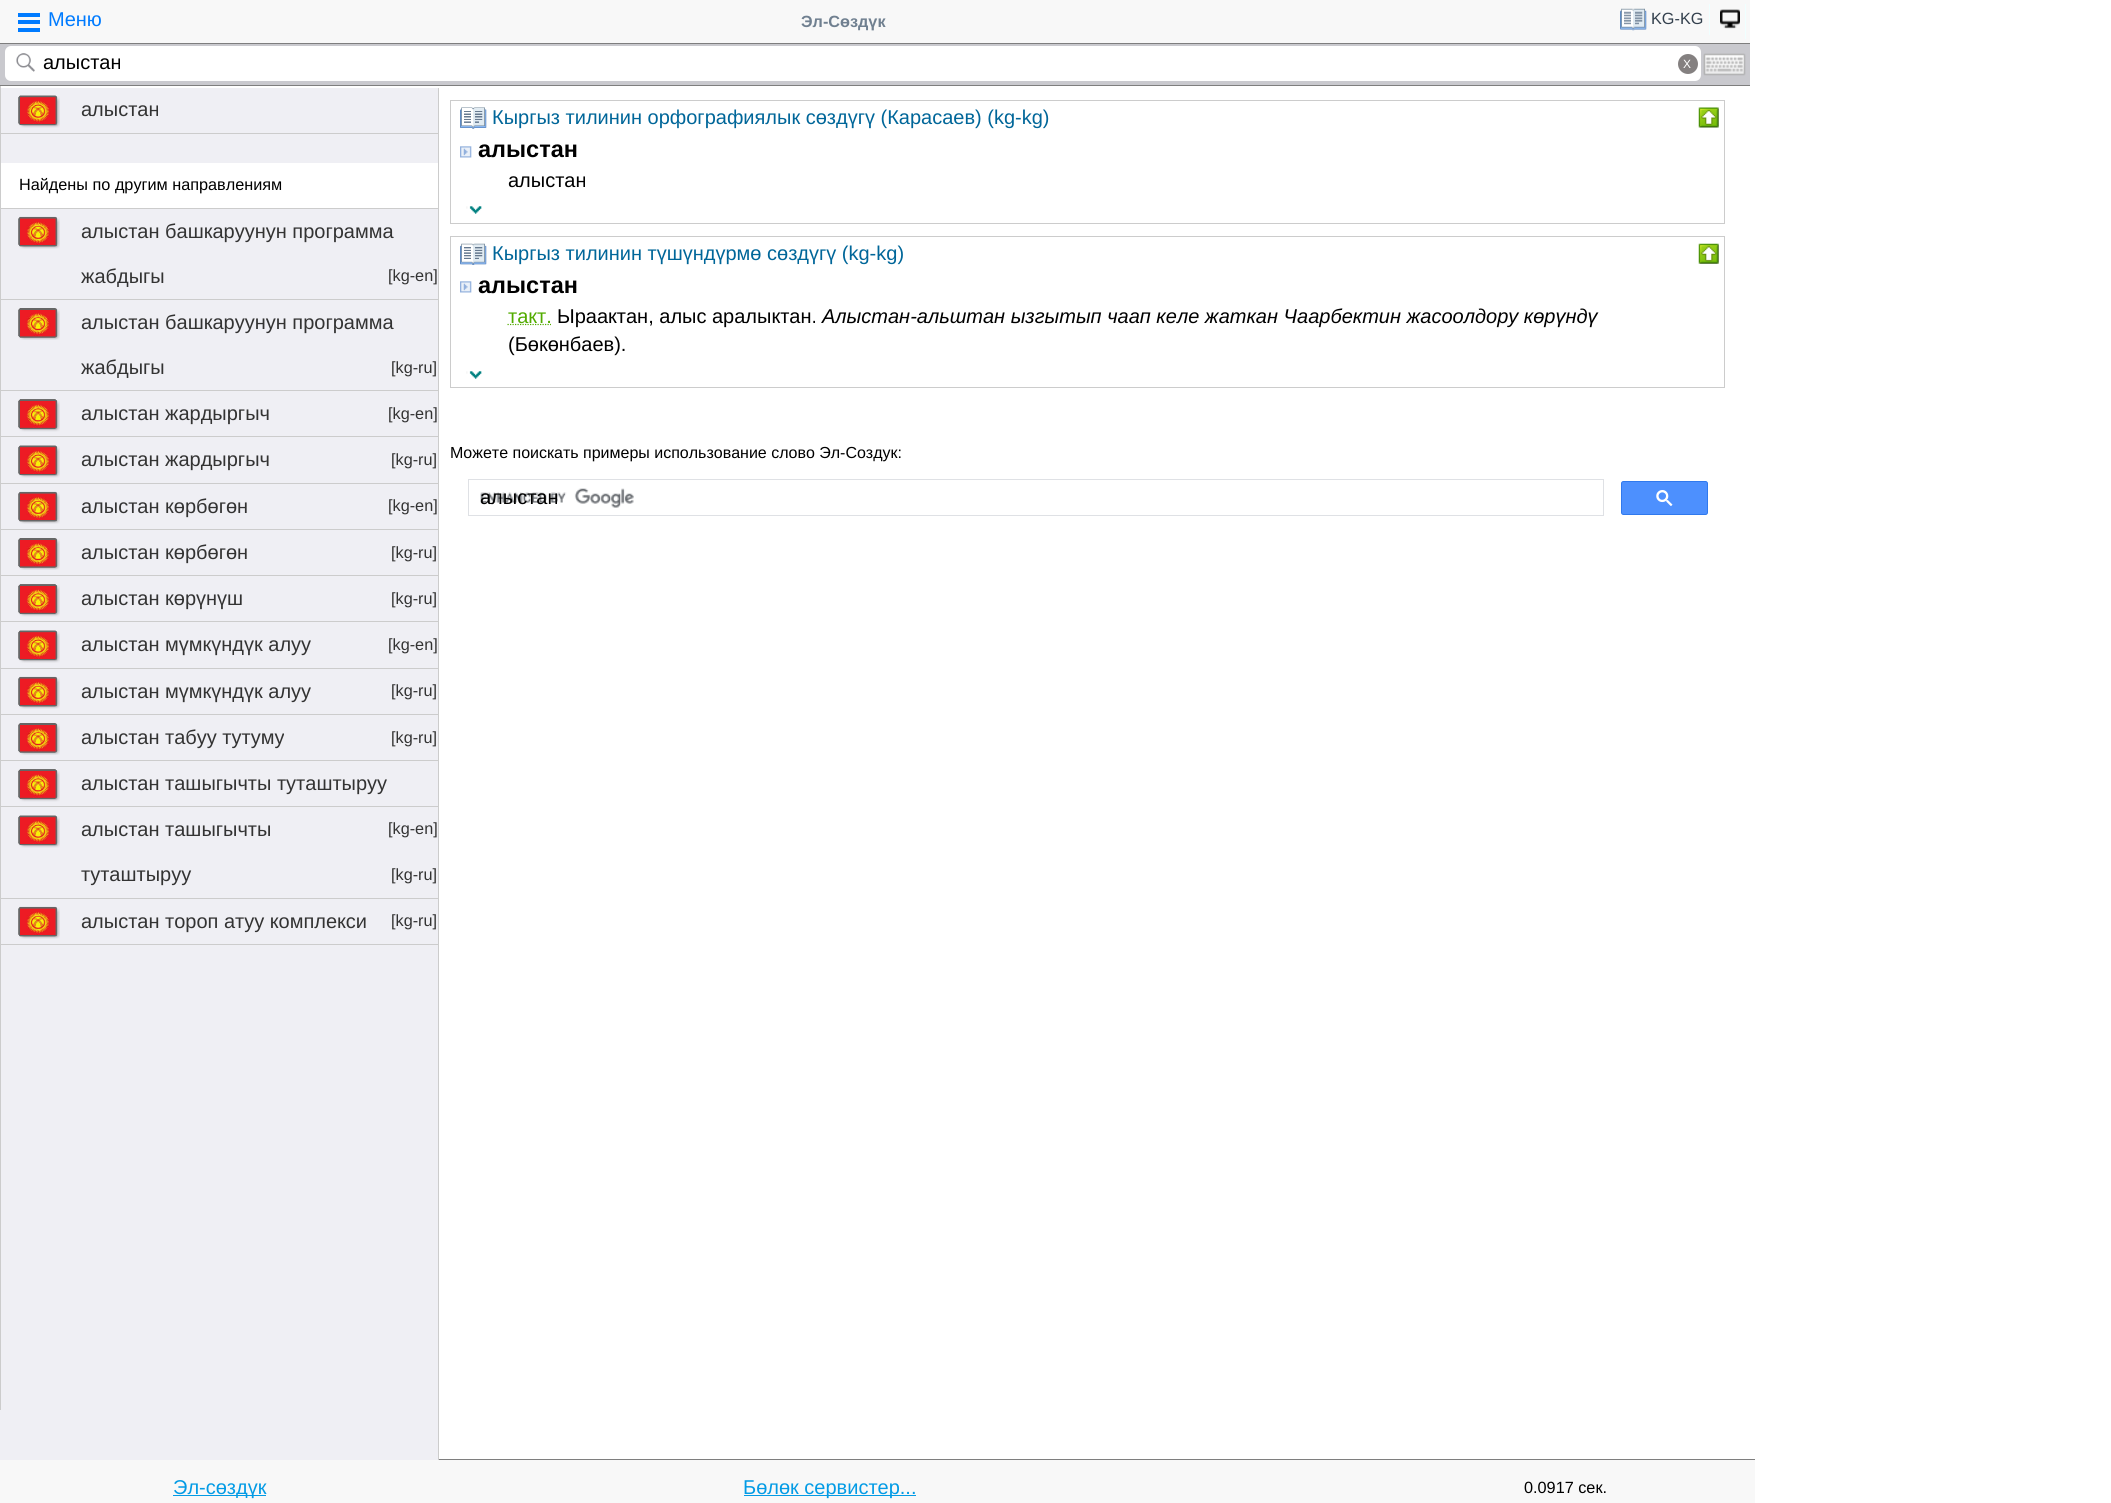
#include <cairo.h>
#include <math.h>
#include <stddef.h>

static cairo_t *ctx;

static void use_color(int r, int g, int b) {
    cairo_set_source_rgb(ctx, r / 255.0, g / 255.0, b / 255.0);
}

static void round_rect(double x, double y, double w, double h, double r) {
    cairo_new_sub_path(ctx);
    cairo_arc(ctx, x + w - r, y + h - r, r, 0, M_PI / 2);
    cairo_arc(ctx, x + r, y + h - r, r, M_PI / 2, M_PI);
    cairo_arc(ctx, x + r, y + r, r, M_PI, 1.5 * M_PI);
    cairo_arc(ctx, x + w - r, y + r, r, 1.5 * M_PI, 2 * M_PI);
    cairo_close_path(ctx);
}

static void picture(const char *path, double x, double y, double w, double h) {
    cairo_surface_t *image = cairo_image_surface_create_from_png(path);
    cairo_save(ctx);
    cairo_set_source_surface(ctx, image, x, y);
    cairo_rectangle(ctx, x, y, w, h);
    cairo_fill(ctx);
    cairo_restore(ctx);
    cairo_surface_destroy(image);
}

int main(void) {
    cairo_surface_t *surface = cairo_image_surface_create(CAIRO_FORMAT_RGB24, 2111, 1503);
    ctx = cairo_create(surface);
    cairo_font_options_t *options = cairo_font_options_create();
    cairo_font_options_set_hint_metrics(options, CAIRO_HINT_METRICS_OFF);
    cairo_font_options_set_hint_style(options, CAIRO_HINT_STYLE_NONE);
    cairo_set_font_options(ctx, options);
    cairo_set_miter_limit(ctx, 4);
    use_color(255, 255, 255);
    cairo_paint(ctx);
    use_color(248, 248, 248);
    cairo_rectangle(ctx, 0, 0, 1750, 43);
    cairo_fill(ctx);
    use_color(126, 126, 126);
    cairo_rectangle(ctx, 0, 43, 1750, 1);
    cairo_fill(ctx);
    use_color(0, 123, 255);
    cairo_rectangle(ctx, 18, 13, 22, 4);
    cairo_fill(ctx);
    cairo_rectangle(ctx, 18, 20, 22, 4);
    cairo_fill(ctx);
    cairo_rectangle(ctx, 18, 28, 22, 4);
    cairo_fill(ctx);
    cairo_select_font_face(ctx, "Liberation Sans", CAIRO_FONT_SLANT_NORMAL, CAIRO_FONT_WEIGHT_NORMAL);
    cairo_set_font_size(ctx, 20);
    cairo_move_to(ctx, 48, 26);
    cairo_show_text(ctx, "Меню");
    cairo_select_font_face(ctx, "Liberation Sans", CAIRO_FONT_SLANT_NORMAL, CAIRO_FONT_WEIGHT_BOLD);
    cairo_set_font_size(ctx, 16.25);
    use_color(112, 128, 144);
    cairo_move_to(ctx, 801, 27);
    cairo_show_text(ctx, "Эл-Сөздүк");
    use_color(240, 255, 255);
    cairo_rectangle(ctx, 1709, 4, 1, 31);
    cairo_fill(ctx);
    picture("img1.png", 1620, 8, 27, 23);
    cairo_select_font_face(ctx, "Liberation Sans", CAIRO_FONT_SLANT_NORMAL, CAIRO_FONT_WEIGHT_NORMAL);
    use_color(51, 64, 77);
    cairo_move_to(ctx, 1651, 24);
    cairo_show_text(ctx, "KG-KG");
    use_color(240, 255, 255);
    cairo_rectangle(ctx, 1745, 4, 1, 35);
    cairo_fill(ctx);
    picture("img2.png", 1720, 9, 20, 20);
    use_color(201, 201, 206);
    cairo_rectangle(ctx, 0, 44, 1750, 41);
    cairo_fill(ctx);
    use_color(126, 126, 126);
    cairo_rectangle(ctx, 0, 85, 1750, 1);
    cairo_fill(ctx);
    use_color(255, 255, 255);
    round_rect(5, 46, 1696, 35, 6);
    cairo_fill(ctx);
    picture("img3.png", 16, 53, 19, 19);
    cairo_set_font_size(ctx, 20);
    use_color(0, 0, 0);
    cairo_move_to(ctx, 43, 69);
    cairo_show_text(ctx, "алыстан");
    use_color(132, 128, 128);
    cairo_new_path(ctx);
    cairo_arc(ctx, 1688, 64, 10, 0, 2 * M_PI);
    cairo_fill(ctx);
    cairo_set_font_size(ctx, 12);
    use_color(255, 255, 255);
    cairo_move_to(ctx, 1683, 68);
    cairo_show_text(ctx, "X");
    picture("img4.png", 1703, 53, 43, 23);
    use_color(239, 239, 244);
    cairo_rectangle(ctx, 0, 88, 438, 1372);
    cairo_fill(ctx);
    use_color(204, 204, 204);
    cairo_rectangle(ctx, 0, 133, 438, 1);
    cairo_fill(ctx);
    cairo_rectangle(ctx, 0, 208, 438, 1);
    cairo_fill(ctx);
    cairo_rectangle(ctx, 0, 299, 438, 1);
    cairo_fill(ctx);
    cairo_rectangle(ctx, 0, 390, 438, 1);
    cairo_fill(ctx);
    cairo_rectangle(ctx, 0, 436, 438, 1);
    cairo_fill(ctx);
    cairo_rectangle(ctx, 0, 483, 438, 1);
    cairo_fill(ctx);
    cairo_rectangle(ctx, 0, 529, 438, 1);
    cairo_fill(ctx);
    cairo_rectangle(ctx, 0, 575, 438, 1);
    cairo_fill(ctx);
    cairo_rectangle(ctx, 0, 621, 438, 1);
    cairo_fill(ctx);
    cairo_rectangle(ctx, 0, 668, 438, 1);
    cairo_fill(ctx);
    cairo_rectangle(ctx, 0, 714, 438, 1);
    cairo_fill(ctx);
    cairo_rectangle(ctx, 0, 760, 438, 1);
    cairo_fill(ctx);
    cairo_rectangle(ctx, 0, 806, 438, 1);
    cairo_fill(ctx);
    cairo_rectangle(ctx, 0, 898, 438, 1);
    cairo_fill(ctx);
    cairo_rectangle(ctx, 0, 944, 438, 1);
    cairo_fill(ctx);
    cairo_rectangle(ctx, 0, 86, 1, 1324);
    cairo_fill(ctx);
    cairo_rectangle(ctx, 438, 88, 1, 1372);
    cairo_fill(ctx);
    picture("img5.png", 18, 95, 42, 33);
    cairo_set_font_size(ctx, 20);
    use_color(51, 51, 51);
    cairo_move_to(ctx, 81, 116);
    cairo_show_text(ctx, "алыстан");
    use_color(255, 255, 255);
    cairo_rectangle(ctx, 1, 163, 437, 45);
    cairo_fill(ctx);
    cairo_set_font_size(ctx, 16.25);
    use_color(0, 0, 0);
    cairo_move_to(ctx, 19, 190);
    cairo_show_text(ctx, "Найдены по другим направлениям");
    picture("img6.png", 18, 216, 42, 33);
    cairo_set_font_size(ctx, 20);
    use_color(51, 51, 51);
    cairo_move_to(ctx, 81, 238);
    cairo_show_text(ctx, "алыстан башкаруунун программа");
    cairo_move_to(ctx, 81, 283);
    cairo_show_text(ctx, "жабдыгы");
    cairo_set_font_size(ctx, 16.25);
    cairo_move_to(ctx, 388, 281);
    cairo_show_text(ctx, "[kg-en]");
    picture("img7.png", 18, 308, 42, 32);
    cairo_set_font_size(ctx, 20);
    cairo_move_to(ctx, 81, 329);
    cairo_show_text(ctx, "алыстан башкаруунун программа");
    cairo_move_to(ctx, 81, 374);
    cairo_show_text(ctx, "жабдыгы");
    cairo_set_font_size(ctx, 16.25);
    cairo_move_to(ctx, 391, 373);
    cairo_show_text(ctx, "[kg-ru]");
    picture("img8.png", 18, 399, 42, 33);
    cairo_set_font_size(ctx, 20);
    cairo_move_to(ctx, 81, 420);
    cairo_show_text(ctx, "алыстан жардыргыч");
    cairo_set_font_size(ctx, 16.25);
    cairo_move_to(ctx, 388, 419);
    cairo_show_text(ctx, "[kg-en]");
    picture("img5.png", 18, 445, 42, 33);
    cairo_set_font_size(ctx, 20);
    cairo_move_to(ctx, 81, 466);
    cairo_show_text(ctx, "алыстан жардыргыч");
    cairo_set_font_size(ctx, 16.25);
    cairo_move_to(ctx, 391, 465);
    cairo_show_text(ctx, "[kg-ru]");
    picture("img6.png", 18, 491, 42, 33);
    cairo_set_font_size(ctx, 20);
    cairo_move_to(ctx, 81, 513);
    cairo_show_text(ctx, "алыстан көрбөгөн");
    cairo_set_font_size(ctx, 16.25);
    cairo_move_to(ctx, 388, 511);
    cairo_show_text(ctx, "[kg-en]");
    picture("img9.png", 18, 538, 42, 32);
    cairo_set_font_size(ctx, 20);
    cairo_move_to(ctx, 81, 559);
    cairo_show_text(ctx, "алыстан көрбөгөн");
    cairo_set_font_size(ctx, 16.25);
    cairo_move_to(ctx, 391, 558);
    cairo_show_text(ctx, "[kg-ru]");
    picture("img8.png", 18, 584, 42, 33);
    cairo_set_font_size(ctx, 20);
    cairo_move_to(ctx, 81, 605);
    cairo_show_text(ctx, "алыстан көрүнүш");
    cairo_set_font_size(ctx, 16.25);
    cairo_move_to(ctx, 391, 604);
    cairo_show_text(ctx, "[kg-ru]");
    picture("img5.png", 18, 630, 42, 33);
    cairo_set_font_size(ctx, 20);
    cairo_move_to(ctx, 81, 651);
    cairo_show_text(ctx, "алыстан мүмкүндүк алуу");
    cairo_set_font_size(ctx, 16.25);
    cairo_move_to(ctx, 388, 650);
    cairo_show_text(ctx, "[kg-en]");
    picture("img6.png", 18, 676, 42, 33);
    cairo_set_font_size(ctx, 20);
    cairo_move_to(ctx, 81, 698);
    cairo_show_text(ctx, "алыстан мүмкүндүк алуу");
    cairo_set_font_size(ctx, 16.25);
    cairo_move_to(ctx, 391, 696);
    cairo_show_text(ctx, "[kg-ru]");
    picture("img7.png", 18, 723, 42, 32);
    cairo_set_font_size(ctx, 20);
    cairo_move_to(ctx, 81, 744);
    cairo_show_text(ctx, "алыстан табуу тутуму");
    cairo_set_font_size(ctx, 16.25);
    cairo_move_to(ctx, 391, 743);
    cairo_show_text(ctx, "[kg-ru]");
    picture("img8.png", 18, 769, 42, 33);
    cairo_set_font_size(ctx, 20);
    cairo_move_to(ctx, 81, 790);
    cairo_show_text(ctx, "алыстан ташыгычты туташтыруу");
    cairo_set_font_size(ctx, 16.25);
    cairo_move_to(ctx, 388, 834);
    cairo_show_text(ctx, "[kg-en]");
    picture("img5.png", 18, 815, 42, 33);
    cairo_set_font_size(ctx, 20);
    cairo_move_to(ctx, 81, 836);
    cairo_show_text(ctx, "алыстан ташыгычты");
    cairo_move_to(ctx, 81, 881);
    cairo_show_text(ctx, "туташтыруу");
    cairo_set_font_size(ctx, 16.25);
    cairo_move_to(ctx, 391, 880);
    cairo_show_text(ctx, "[kg-ru]");
    picture("img6.png", 18, 906, 42, 33);
    cairo_set_font_size(ctx, 20);
    cairo_move_to(ctx, 81, 928);
    cairo_show_text(ctx, "алыстан тороп атуу комплекси");
    cairo_set_font_size(ctx, 16.25);
    cairo_move_to(ctx, 391, 926);
    cairo_show_text(ctx, "[kg-ru]");
    cairo_rectangle(ctx, 450.5, 100.5, 1274, 123);
    use_color(204, 204, 204);
    cairo_set_line_width(ctx, 1);
    cairo_stroke(ctx);
    picture("img10.png", 460, 107, 27, 22);
    cairo_set_font_size(ctx, 20);
    use_color(0, 102, 153);
    cairo_move_to(ctx, 492, 124);
    cairo_show_text(ctx, "Кыргыз тилинин орфографиялык сөздүгү (Карасаев) (kg-kg)");
    picture("img11.png", 1698, 107, 21, 21);
    picture("img12.png", 460, 146, 12, 12);
    cairo_select_font_face(ctx, "Liberation Sans", CAIRO_FONT_SLANT_NORMAL, CAIRO_FONT_WEIGHT_BOLD);
    cairo_set_font_size(ctx, 23.5);
    use_color(0, 0, 0);
    cairo_move_to(ctx, 478, 157);
    cairo_show_text(ctx, "алыстан");
    cairo_select_font_face(ctx, "Liberation Sans", CAIRO_FONT_SLANT_NORMAL, CAIRO_FONT_WEIGHT_NORMAL);
    cairo_set_font_size(ctx, 20);
    cairo_move_to(ctx, 508, 187);
    cairo_show_text(ctx, "алыстан");
    picture("img13.png", 466, 206, 16, 8);
    cairo_rectangle(ctx, 450.5, 236.5, 1274, 151);
    use_color(204, 204, 204);
    cairo_stroke(ctx);
    picture("img14.png", 460, 243, 27, 22);
    use_color(0, 102, 153);
    cairo_move_to(ctx, 492, 260);
    cairo_show_text(ctx, "Кыргыз тилинин түшүндүрмө сөздүгү (kg-kg)");
    picture("img15.png", 1698, 243, 21, 21);
    picture("img12.png", 460, 281, 12, 12);
    cairo_select_font_face(ctx, "Liberation Sans", CAIRO_FONT_SLANT_NORMAL, CAIRO_FONT_WEIGHT_BOLD);
    cairo_set_font_size(ctx, 23.5);
    use_color(0, 0, 0);
    cairo_move_to(ctx, 478, 293);
    cairo_show_text(ctx, "алыстан");
    cairo_new_path(ctx);
    cairo_move_to(ctx, 507.5, 324.5);
    cairo_line_to(ctx, 551, 324.5);
    use_color(82, 171, 0);
    cairo_set_line_width(ctx, 1.2);
    cairo_set_dash(ctx, (double[]){1.25, 1.25}, 2, 0);
    cairo_stroke(ctx);
    cairo_select_font_face(ctx, "Liberation Sans", CAIRO_FONT_SLANT_NORMAL, CAIRO_FONT_WEIGHT_NORMAL);
    cairo_set_font_size(ctx, 20);
    cairo_move_to(ctx, 508, 323);
    cairo_show_text(ctx, "такт.");
    use_color(0, 0, 0);
    cairo_move_to(ctx, 557, 323);
    cairo_show_text(ctx, "Ыраактан, алыс аралыктан.");
    cairo_select_font_face(ctx, "Liberation Sans", CAIRO_FONT_SLANT_ITALIC, CAIRO_FONT_WEIGHT_NORMAL);
    cairo_move_to(ctx, 822, 323);
    cairo_show_text(ctx, "Алыстан-альштан ызгытып чаап келе жаткан Чаарбектин жасоолдору көрүндү");
    cairo_select_font_face(ctx, "Liberation Sans", CAIRO_FONT_SLANT_NORMAL, CAIRO_FONT_WEIGHT_NORMAL);
    cairo_move_to(ctx, 508, 351);
    cairo_show_text(ctx, "(Бөкөнбаев).");
    picture("img13.png", 466, 371, 16, 8);
    cairo_set_font_size(ctx, 16);
    cairo_move_to(ctx, 450, 458);
    cairo_show_text(ctx, "Можете поискать примеры использование слово Эл-Создук:");
    cairo_rectangle(ctx, 468.5, 479.5, 1135, 36);
    use_color(223, 225, 229);
    cairo_set_line_width(ctx, 1);
    cairo_set_dash(ctx, NULL, 0, 0);
    cairo_stroke(ctx);
    picture("img16.png", 480, 488, 154, 20);
    cairo_set_font_size(ctx, 20);
    use_color(0, 0, 0);
    cairo_move_to(ctx, 480, 504);
    cairo_show_text(ctx, "алыстан");
    use_color(77, 144, 254);
    round_rect(1621.5, 481.5, 86, 33, 2);
    cairo_fill_preserve(ctx);
    use_color(48, 121, 237);
    cairo_stroke(ctx);
    picture("img17.png", 1656, 490, 17, 16);
    use_color(248, 248, 248);
    cairo_rectangle(ctx, 0, 1460, 1755, 43);
    cairo_fill(ctx);
    use_color(126, 126, 126);
    cairo_rectangle(ctx, 439, 1459, 1316, 1);
    cairo_fill(ctx);
    use_color(3, 155, 229);
    cairo_rectangle(ctx, 173, 1495, 93, 1);
    cairo_fill(ctx);
    cairo_move_to(ctx, 173, 1494);
    cairo_show_text(ctx, "Эл-сөздүк");
    cairo_rectangle(ctx, 744, 1495, 172, 1);
    cairo_fill(ctx);
    cairo_move_to(ctx, 743, 1494);
    cairo_show_text(ctx, "Бөлөк сервистер...");
    cairo_set_font_size(ctx, 16.25);
    use_color(0, 0, 0);
    cairo_move_to(ctx, 1524, 1493);
    cairo_show_text(ctx, "0.0917 сек.");
    cairo_surface_write_to_png(surface, "result.png");
    cairo_font_options_destroy(options);
    cairo_destroy(ctx);
    cairo_surface_destroy(surface);
    return 0;
}
